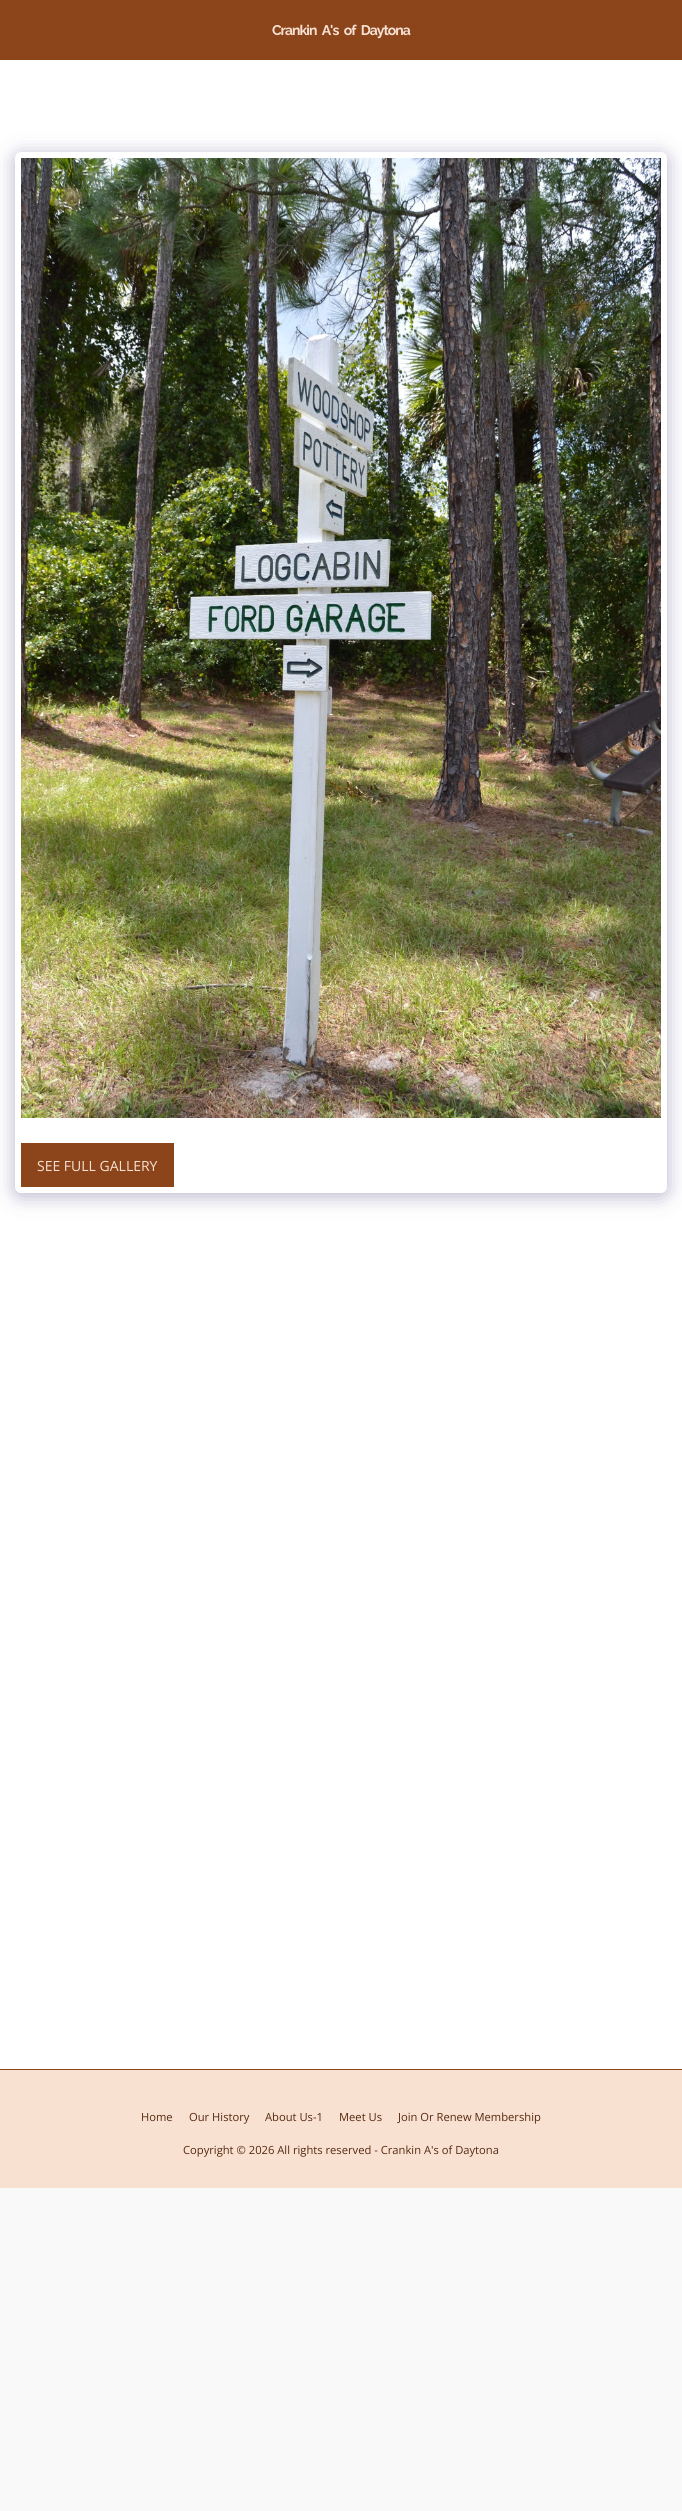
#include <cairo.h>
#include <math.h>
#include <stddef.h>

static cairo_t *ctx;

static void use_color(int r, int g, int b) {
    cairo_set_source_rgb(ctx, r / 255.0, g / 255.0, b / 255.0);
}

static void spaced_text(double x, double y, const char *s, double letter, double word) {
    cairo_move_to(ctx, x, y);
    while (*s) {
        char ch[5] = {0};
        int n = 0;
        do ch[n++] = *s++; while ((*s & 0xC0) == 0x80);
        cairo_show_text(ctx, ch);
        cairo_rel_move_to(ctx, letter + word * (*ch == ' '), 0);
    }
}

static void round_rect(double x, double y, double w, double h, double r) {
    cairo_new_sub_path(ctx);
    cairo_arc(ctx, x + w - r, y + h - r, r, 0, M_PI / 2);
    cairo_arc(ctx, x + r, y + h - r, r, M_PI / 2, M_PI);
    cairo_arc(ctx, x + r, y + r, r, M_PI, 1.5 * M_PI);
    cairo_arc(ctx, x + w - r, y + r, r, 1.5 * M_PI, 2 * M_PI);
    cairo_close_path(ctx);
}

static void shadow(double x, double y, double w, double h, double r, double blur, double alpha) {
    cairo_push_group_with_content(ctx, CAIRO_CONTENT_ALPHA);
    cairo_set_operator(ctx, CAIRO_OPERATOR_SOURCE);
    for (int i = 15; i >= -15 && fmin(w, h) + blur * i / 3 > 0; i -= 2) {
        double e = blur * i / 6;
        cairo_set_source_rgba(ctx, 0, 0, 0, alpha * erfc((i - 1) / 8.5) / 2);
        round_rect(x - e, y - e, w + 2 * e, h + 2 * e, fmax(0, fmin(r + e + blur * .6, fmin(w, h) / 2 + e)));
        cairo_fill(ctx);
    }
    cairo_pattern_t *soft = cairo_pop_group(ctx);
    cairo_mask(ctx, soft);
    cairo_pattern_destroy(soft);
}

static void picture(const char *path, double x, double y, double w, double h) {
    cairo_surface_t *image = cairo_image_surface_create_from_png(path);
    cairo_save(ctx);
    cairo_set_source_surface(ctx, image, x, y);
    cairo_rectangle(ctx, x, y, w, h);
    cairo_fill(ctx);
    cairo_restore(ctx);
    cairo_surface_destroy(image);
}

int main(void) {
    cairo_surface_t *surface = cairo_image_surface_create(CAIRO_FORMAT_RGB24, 682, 2511);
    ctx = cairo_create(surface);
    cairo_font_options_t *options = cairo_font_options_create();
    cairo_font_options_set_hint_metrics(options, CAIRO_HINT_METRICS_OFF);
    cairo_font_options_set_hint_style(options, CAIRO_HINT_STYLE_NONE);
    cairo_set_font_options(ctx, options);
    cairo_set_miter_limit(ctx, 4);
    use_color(249, 249, 249);
    cairo_paint(ctx);
    use_color(140, 69, 26);
    cairo_rectangle(ctx, 0, 0, 682, 60);
    cairo_fill(ctx);
    cairo_select_font_face(ctx, "Raleway", CAIRO_FONT_SLANT_NORMAL, CAIRO_FONT_WEIGHT_BOLD);
    cairo_set_font_size(ctx, 14);
    use_color(247, 225, 212);
    spaced_text(272, 35, "Crankin A's of Daytona", -1, 3);
    use_color(255, 255, 255);
    cairo_rectangle(ctx, 0, 60, 682, 2009);
    cairo_fill(ctx);
    use_color(77, 63, 122);
    shadow(15, 155, 652, 1041, 6, 10, 0.4);
    use_color(255, 255, 255);
    round_rect(15, 152, 652, 1041, 6);
    cairo_fill(ctx);
    picture("img1.png", 21, 158, 640, 960);
    use_color(140, 69, 26);
    cairo_rectangle(ctx, 21, 1143, 153, 44);
    cairo_fill(ctx);
    cairo_select_font_face(ctx, "Open Sans", CAIRO_FONT_SLANT_NORMAL, CAIRO_FONT_WEIGHT_NORMAL);
    use_color(247, 225, 212);
    cairo_move_to(ctx, 37, 1171);
    cairo_show_text(ctx, "SEE FULL GALLERY");
    use_color(140, 69, 26);
    cairo_rectangle(ctx, 0, 2069, 682, 1);
    cairo_fill(ctx);
    use_color(249, 225, 210);
    cairo_rectangle(ctx, 0, 2070, 682, 118);
    cairo_fill(ctx);
    cairo_set_font_size(ctx, 11.2);
    use_color(86, 42, 16);
    cairo_move_to(ctx, 141, 2121);
    cairo_show_text(ctx, "Home");
    cairo_move_to(ctx, 189, 2121);
    cairo_show_text(ctx, "Our History");
    cairo_move_to(ctx, 265, 2121);
    cairo_show_text(ctx, "About Us-1");
    cairo_move_to(ctx, 339, 2121);
    cairo_show_text(ctx, "Meet Us");
    cairo_move_to(ctx, 398, 2121);
    cairo_show_text(ctx, "Join Or Renew Membership");
    cairo_move_to(ctx, 183, 2154);
    cairo_show_text(ctx, "Copyright © 2026 All rights reserved - Crankin A's of Daytona");
    cairo_surface_write_to_png(surface, "result.png");
    cairo_font_options_destroy(options);
    cairo_destroy(ctx);
    cairo_surface_destroy(surface);
    return 0;
}
